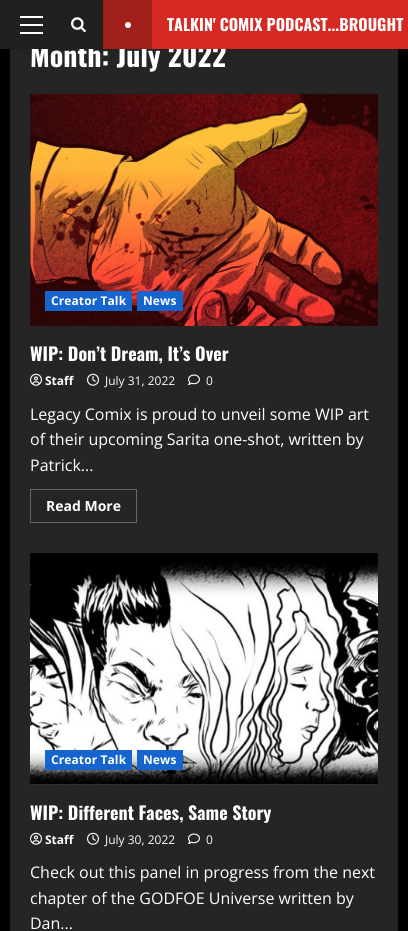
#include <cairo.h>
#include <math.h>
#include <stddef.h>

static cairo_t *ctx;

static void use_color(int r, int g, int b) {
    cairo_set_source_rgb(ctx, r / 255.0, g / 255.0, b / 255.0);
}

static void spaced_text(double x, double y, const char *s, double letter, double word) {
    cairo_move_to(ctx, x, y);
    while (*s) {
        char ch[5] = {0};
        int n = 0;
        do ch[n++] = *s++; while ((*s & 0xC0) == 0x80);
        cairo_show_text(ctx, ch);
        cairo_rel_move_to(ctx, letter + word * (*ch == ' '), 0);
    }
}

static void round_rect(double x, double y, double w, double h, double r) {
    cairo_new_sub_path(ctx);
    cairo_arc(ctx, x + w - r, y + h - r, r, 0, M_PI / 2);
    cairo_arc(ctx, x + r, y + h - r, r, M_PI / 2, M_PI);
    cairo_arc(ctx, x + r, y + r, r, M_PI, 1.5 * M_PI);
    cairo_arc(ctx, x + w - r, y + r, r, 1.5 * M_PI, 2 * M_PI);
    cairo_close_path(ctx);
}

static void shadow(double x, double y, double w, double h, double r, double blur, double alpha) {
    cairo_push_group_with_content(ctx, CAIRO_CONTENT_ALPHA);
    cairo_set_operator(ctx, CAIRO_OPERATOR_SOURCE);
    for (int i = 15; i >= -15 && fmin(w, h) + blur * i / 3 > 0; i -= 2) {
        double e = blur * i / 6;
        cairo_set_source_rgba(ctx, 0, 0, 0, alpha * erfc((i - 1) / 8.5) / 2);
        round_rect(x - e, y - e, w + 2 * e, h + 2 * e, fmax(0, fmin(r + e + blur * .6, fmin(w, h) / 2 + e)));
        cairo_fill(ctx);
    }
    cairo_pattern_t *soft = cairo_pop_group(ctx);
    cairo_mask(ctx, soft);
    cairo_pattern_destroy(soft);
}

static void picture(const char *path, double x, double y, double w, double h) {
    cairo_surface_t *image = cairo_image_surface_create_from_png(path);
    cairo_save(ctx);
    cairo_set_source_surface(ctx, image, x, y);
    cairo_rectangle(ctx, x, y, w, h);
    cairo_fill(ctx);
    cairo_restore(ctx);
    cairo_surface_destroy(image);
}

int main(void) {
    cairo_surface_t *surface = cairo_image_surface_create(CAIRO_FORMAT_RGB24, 408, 931);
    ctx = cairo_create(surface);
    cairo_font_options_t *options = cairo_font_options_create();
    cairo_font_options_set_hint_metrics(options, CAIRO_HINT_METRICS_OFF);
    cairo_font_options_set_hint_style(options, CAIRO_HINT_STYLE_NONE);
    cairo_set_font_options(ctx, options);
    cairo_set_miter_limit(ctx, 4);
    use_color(0, 0, 0);
    cairo_paint(ctx);
    use_color(37, 37, 37);
    cairo_rectangle(ctx, 10, 49, 388, 882);
    cairo_fill(ctx);
    use_color(0, 0, 0);
    shadow(0, 2, 408, 49, 0, 4, 0.08);
    cairo_select_font_face(ctx, "Oswald", CAIRO_FONT_SLANT_NORMAL, CAIRO_FONT_WEIGHT_BOLD);
    cairo_set_font_size(ctx, 28);
    use_color(255, 255, 255);
    cairo_move_to(ctx, 30, 67);
    cairo_show_text(ctx, "Month: July 2022");
    use_color(32, 32, 32);
    cairo_rectangle(ctx, 0, 0, 103, 49);
    cairo_fill(ctx);
    use_color(255, 255, 255);
    cairo_rectangle(ctx, 20, 24, 23, 2);
    cairo_fill(ctx);
    cairo_rectangle(ctx, 20, 16, 23, 2);
    cairo_fill(ctx);
    cairo_rectangle(ctx, 20, 32, 23, 2);
    cairo_fill(ctx);
    picture("img1.png", 71, 17, 15, 16);
    use_color(215, 41, 36);
    cairo_rectangle(ctx, 152, 0, 256, 49);
    cairo_fill(ctx);
    use_color(161, 31, 27);
    cairo_rectangle(ctx, 103, 0, 49, 49);
    cairo_fill(ctx);
    use_color(255, 255, 255);
    cairo_arc(ctx, 128, 25, 3, 0, 2 * M_PI);
    cairo_fill(ctx);
    cairo_set_font_size(ctx, 16);
    cairo_move_to(ctx, 167, 31);
    cairo_show_text(ctx, "TALKIN' COMIX PODCAST...BROUGHT");
    picture("img2.png", 30, 94, 348, 232);
    use_color(22, 101, 207);
    cairo_rectangle(ctx, 45, 291, 87, 20);
    cairo_fill(ctx);
    cairo_select_font_face(ctx, "Open Sans", CAIRO_FONT_SLANT_NORMAL, CAIRO_FONT_WEIGHT_BOLD);
    cairo_set_font_size(ctx, 12);
    use_color(255, 255, 255);
    spaced_text(51, 305, "Creator Talk", 0.1, 0);
    use_color(22, 101, 207);
    cairo_rectangle(ctx, 137, 291, 46, 20);
    cairo_fill(ctx);
    use_color(255, 255, 255);
    spaced_text(143, 305, "News", 0.1, 0);
    cairo_select_font_face(ctx, "Oswald", CAIRO_FONT_SLANT_NORMAL, CAIRO_FONT_WEIGHT_BOLD);
    cairo_set_font_size(ctx, 18);
    cairo_move_to(ctx, 30, 361);
    cairo_show_text(ctx, "WIP: Don’t Dream, It’s Over");
    picture("img3.png", 30, 373, 12, 13);
    cairo_select_font_face(ctx, "Open Sans", CAIRO_FONT_SLANT_NORMAL, CAIRO_FONT_WEIGHT_BOLD);
    cairo_set_font_size(ctx, 12);
    cairo_move_to(ctx, 45, 385);
    cairo_show_text(ctx, "Staff");
    picture("img4.png", 87, 373, 12, 13);
    cairo_select_font_face(ctx, "Open Sans", CAIRO_FONT_SLANT_NORMAL, CAIRO_FONT_WEIGHT_NORMAL);
    cairo_move_to(ctx, 105, 385);
    cairo_show_text(ctx, "July 31, 2022");
    picture("img5.png", 188, 374, 12, 11);
    cairo_move_to(ctx, 206, 385);
    cairo_show_text(ctx, "0");
    cairo_set_font_size(ctx, 16);
    cairo_move_to(ctx, 30, 420);
    cairo_show_text(ctx, "Legacy Comix is proud to unveil some WIP art");
    cairo_move_to(ctx, 30, 445);
    cairo_show_text(ctx, "of their upcoming Sarita one-shot, written by");
    cairo_move_to(ctx, 30, 471);
    cairo_show_text(ctx, "Patrick...");
    cairo_rectangle(ctx, 30.5, 489.5, 106, 33);
    use_color(102, 102, 102);
    cairo_set_line_width(ctx, 1);
    cairo_stroke(ctx);
    cairo_select_font_face(ctx, "Open Sans", CAIRO_FONT_SLANT_NORMAL, CAIRO_FONT_WEIGHT_BOLD);
    cairo_set_font_size(ctx, 14);
    use_color(255, 255, 255);
    cairo_move_to(ctx, 46, 511);
    cairo_show_text(ctx, "Read More");
    picture("img6.png", 30, 553, 348, 232);
    use_color(22, 101, 207);
    cairo_rectangle(ctx, 45, 750, 87, 20);
    cairo_fill(ctx);
    cairo_set_font_size(ctx, 12);
    use_color(255, 255, 255);
    spaced_text(51, 764, "Creator Talk", 0.1, 0);
    use_color(22, 101, 207);
    cairo_rectangle(ctx, 137, 750, 46, 20);
    cairo_fill(ctx);
    use_color(255, 255, 255);
    spaced_text(143, 764, "News", 0.1, 0);
    cairo_select_font_face(ctx, "Oswald", CAIRO_FONT_SLANT_NORMAL, CAIRO_FONT_WEIGHT_BOLD);
    cairo_set_font_size(ctx, 18);
    cairo_move_to(ctx, 30, 820);
    cairo_show_text(ctx, "WIP: Different Faces, Same Story");
    picture("img3.png", 30, 832, 12, 13);
    cairo_select_font_face(ctx, "Open Sans", CAIRO_FONT_SLANT_NORMAL, CAIRO_FONT_WEIGHT_BOLD);
    cairo_set_font_size(ctx, 12);
    cairo_move_to(ctx, 45, 844);
    cairo_show_text(ctx, "Staff");
    picture("img4.png", 87, 832, 12, 13);
    cairo_select_font_face(ctx, "Open Sans", CAIRO_FONT_SLANT_NORMAL, CAIRO_FONT_WEIGHT_NORMAL);
    cairo_move_to(ctx, 105, 844);
    cairo_show_text(ctx, "July 30, 2022");
    picture("img5.png", 188, 833, 12, 11);
    cairo_move_to(ctx, 206, 844);
    cairo_show_text(ctx, "0");
    cairo_set_font_size(ctx, 16);
    cairo_move_to(ctx, 30, 878);
    cairo_show_text(ctx, "Check out this panel in progress from the next");
    cairo_move_to(ctx, 30, 904);
    cairo_show_text(ctx, "chapter of the GODFOE Universe written by");
    cairo_move_to(ctx, 30, 929);
    cairo_show_text(ctx, "Dan...");
    cairo_surface_write_to_png(surface, "result.png");
    cairo_font_options_destroy(options);
    cairo_destroy(ctx);
    cairo_surface_destroy(surface);
    return 0;
}
